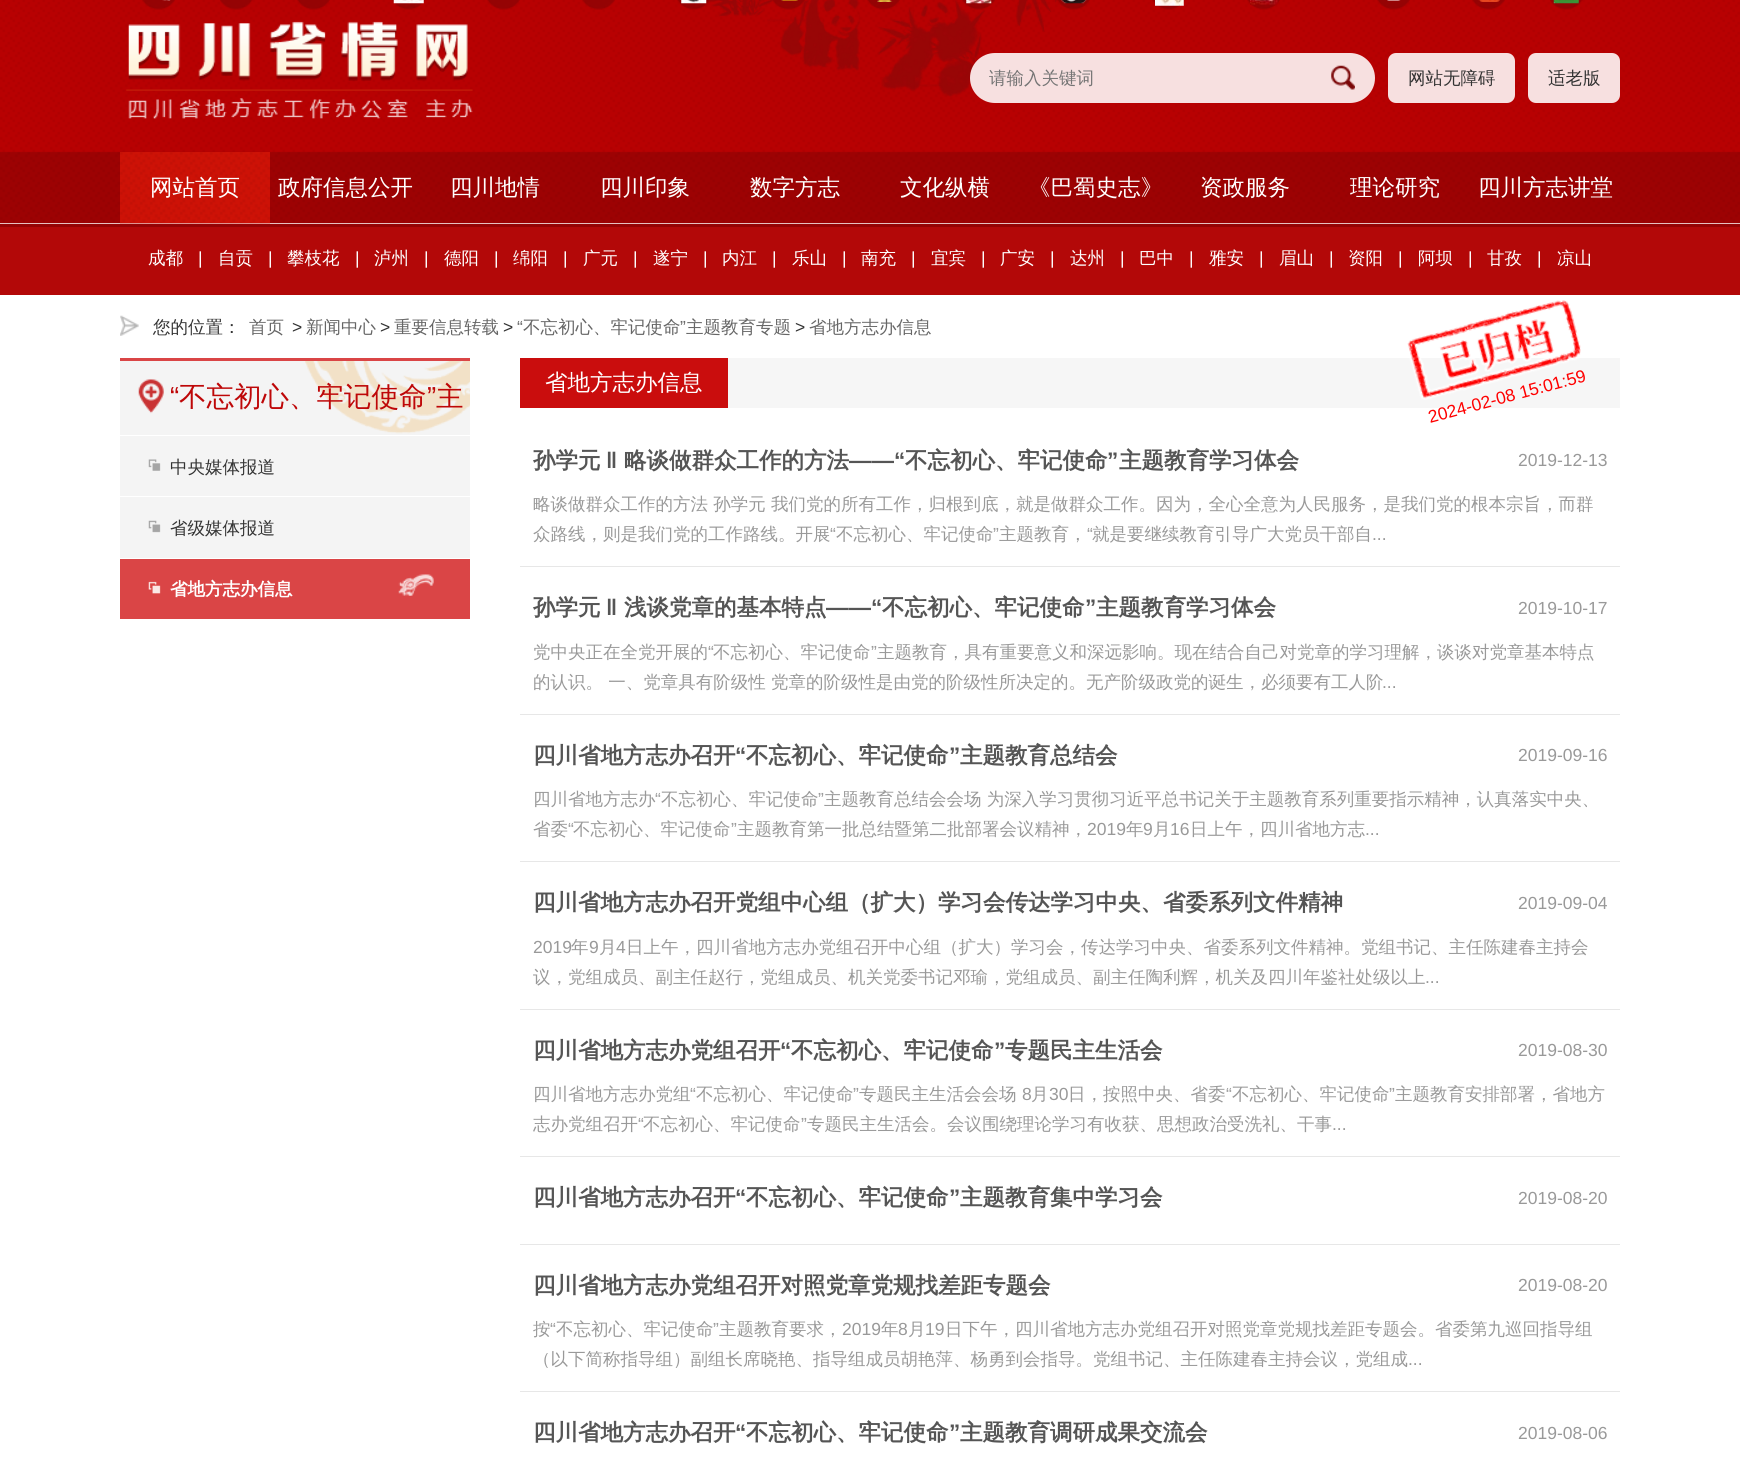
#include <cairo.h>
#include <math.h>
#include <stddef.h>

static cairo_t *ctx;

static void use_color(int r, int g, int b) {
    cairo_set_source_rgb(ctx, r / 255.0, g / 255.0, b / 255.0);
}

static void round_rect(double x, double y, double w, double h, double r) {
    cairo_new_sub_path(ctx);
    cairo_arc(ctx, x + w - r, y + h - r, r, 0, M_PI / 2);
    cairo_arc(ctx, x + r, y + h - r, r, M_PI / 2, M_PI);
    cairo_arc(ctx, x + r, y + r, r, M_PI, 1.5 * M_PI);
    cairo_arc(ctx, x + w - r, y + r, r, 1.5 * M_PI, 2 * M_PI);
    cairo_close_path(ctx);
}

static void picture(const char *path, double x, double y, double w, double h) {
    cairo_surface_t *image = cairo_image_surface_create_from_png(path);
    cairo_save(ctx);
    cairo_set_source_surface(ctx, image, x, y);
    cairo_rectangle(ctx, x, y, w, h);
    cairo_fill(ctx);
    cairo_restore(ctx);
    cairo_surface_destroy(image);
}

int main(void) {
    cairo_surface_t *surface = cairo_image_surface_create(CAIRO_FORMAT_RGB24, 1740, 1458);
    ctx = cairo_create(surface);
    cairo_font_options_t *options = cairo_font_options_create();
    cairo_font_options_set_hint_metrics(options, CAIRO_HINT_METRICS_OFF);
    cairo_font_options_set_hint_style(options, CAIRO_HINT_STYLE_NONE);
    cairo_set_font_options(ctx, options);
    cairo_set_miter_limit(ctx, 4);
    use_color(255, 255, 255);
    cairo_paint(ctx);
    picture("img1.png", 0, 0, 1740, 224);
    picture("img2.png", 706, 0, 352, 97);
    picture("img3.png", 142, 0, 33, 10);
    picture("img4.png", 162, 0, 9, 1);
    picture("img5.png", 220, 0, 33, 10);
    picture("img6.png", 297, 0, 33, 10);
    picture("img3.png", 392, 0, 33, 10);
    picture("img7.png", 393, 0, 31, 4);
    picture("img8.png", 487, 0, 33, 10);
    picture("img9.png", 582, 0, 33, 10);
    picture("img10.png", 677, 0, 32, 10);
    picture("img11.png", 681, 0, 26, 4);
    picture("img12.png", 773, 0, 32, 10);
    picture("img13.png", 781, 0, 17, 1);
    picture("img14.png", 867, 0, 33, 10);
    picture("img15.png", 877, 0, 16, 2);
    picture("img16.png", 962, 0, 33, 10);
    picture("img17.png", 966, 0, 26, 4);
    picture("img18.png", 1057, 0, 33, 10);
    picture("img19.png", 1061, 0, 26, 4);
    picture("img9.png", 1152, 0, 33, 10);
    picture("img20.png", 1155, 0, 29, 6);
    picture("img21.png", 1247, 0, 33, 10);
    picture("img22.png", 1250, 0, 28, 5);
    picture("img6.png", 1377, 0, 33, 10);
    picture("img23.png", 1387, 0, 14, 1);
    picture("img3.png", 1472, 0, 33, 10);
    picture("img24.png", 1478, 0, 22, 2);
    picture("img25.png", 1550, 0, 33, 10);
    picture("img26.png", 1553, 0, 26, 4);
    picture("img27.png", 126, 21, 347, 98);
    use_color(247, 224, 224);
    round_rect(970, 53, 405, 50, 25);
    cairo_fill(ctx);
    cairo_select_font_face(ctx, "WenQuanYi Zen Hei Medium", CAIRO_FONT_SLANT_NORMAL, CAIRO_FONT_WEIGHT_NORMAL);
    cairo_set_font_size(ctx, 17.5);
    use_color(117, 117, 117);
    cairo_move_to(ctx, 989, 84);
    cairo_show_text(ctx, "请输入关键词");
    picture("img28.png", 1331, 65, 24, 25);
    use_color(247, 224, 224);
    round_rect(1388, 53, 127, 50, 8);
    cairo_fill(ctx);
    use_color(51, 51, 51);
    cairo_move_to(ctx, 1408, 84);
    cairo_show_text(ctx, "网站无障碍");
    use_color(247, 224, 224);
    round_rect(1528, 53, 92, 50, 8);
    cairo_fill(ctx);
    use_color(51, 51, 51);
    cairo_move_to(ctx, 1548, 84);
    cairo_show_text(ctx, "适老版");
    picture("img29.png", 120, 152, 150, 72);
    cairo_set_font_size(ctx, 22.5);
    use_color(255, 255, 255);
    cairo_move_to(ctx, 150, 195);
    cairo_show_text(ctx, "网站首页");
    cairo_move_to(ctx, 278, 195);
    cairo_show_text(ctx, "政府信息公开");
    cairo_move_to(ctx, 450, 195);
    cairo_show_text(ctx, "四川地情");
    cairo_move_to(ctx, 600, 195);
    cairo_show_text(ctx, "四川印象");
    cairo_move_to(ctx, 750, 195);
    cairo_show_text(ctx, "数字方志");
    cairo_move_to(ctx, 900, 195);
    cairo_show_text(ctx, "文化纵横");
    cairo_move_to(ctx, 1028, 195);
    cairo_show_text(ctx, "《巴蜀史志》");
    cairo_move_to(ctx, 1200, 195);
    cairo_show_text(ctx, "资政服务");
    cairo_move_to(ctx, 1350, 195);
    cairo_show_text(ctx, "理论研究");
    cairo_move_to(ctx, 1478, 195);
    cairo_show_text(ctx, "四川方志讲堂");
    use_color(179, 8, 8);
    cairo_rectangle(ctx, 0, 227, 1740, 68);
    cairo_fill(ctx);
    use_color(149, 3, 4);
    cairo_rectangle(ctx, 0, 224, 1740, 3);
    cairo_fill(ctx);
    cairo_set_font_size(ctx, 17.5);
    use_color(255, 255, 255);
    cairo_move_to(ctx, 148, 264);
    cairo_show_text(ctx, "成都");
    cairo_select_font_face(ctx, "Liberation Sans", CAIRO_FONT_SLANT_NORMAL, CAIRO_FONT_WEIGHT_NORMAL);
    cairo_move_to(ctx, 198, 264);
    cairo_show_text(ctx, "|");
    cairo_select_font_face(ctx, "WenQuanYi Zen Hei Medium", CAIRO_FONT_SLANT_NORMAL, CAIRO_FONT_WEIGHT_NORMAL);
    cairo_move_to(ctx, 218, 264);
    cairo_show_text(ctx, "自贡");
    cairo_select_font_face(ctx, "Liberation Sans", CAIRO_FONT_SLANT_NORMAL, CAIRO_FONT_WEIGHT_NORMAL);
    cairo_move_to(ctx, 268, 264);
    cairo_show_text(ctx, "|");
    cairo_select_font_face(ctx, "WenQuanYi Zen Hei Medium", CAIRO_FONT_SLANT_NORMAL, CAIRO_FONT_WEIGHT_NORMAL);
    cairo_move_to(ctx, 287, 264);
    cairo_show_text(ctx, "攀枝花");
    cairo_select_font_face(ctx, "Liberation Sans", CAIRO_FONT_SLANT_NORMAL, CAIRO_FONT_WEIGHT_NORMAL);
    cairo_move_to(ctx, 355, 264);
    cairo_show_text(ctx, "|");
    cairo_select_font_face(ctx, "WenQuanYi Zen Hei Medium", CAIRO_FONT_SLANT_NORMAL, CAIRO_FONT_WEIGHT_NORMAL);
    cairo_move_to(ctx, 374, 264);
    cairo_show_text(ctx, "泸州");
    cairo_select_font_face(ctx, "Liberation Sans", CAIRO_FONT_SLANT_NORMAL, CAIRO_FONT_WEIGHT_NORMAL);
    cairo_move_to(ctx, 424, 264);
    cairo_show_text(ctx, "|");
    cairo_select_font_face(ctx, "WenQuanYi Zen Hei Medium", CAIRO_FONT_SLANT_NORMAL, CAIRO_FONT_WEIGHT_NORMAL);
    cairo_move_to(ctx, 444, 264);
    cairo_show_text(ctx, "德阳");
    cairo_select_font_face(ctx, "Liberation Sans", CAIRO_FONT_SLANT_NORMAL, CAIRO_FONT_WEIGHT_NORMAL);
    cairo_move_to(ctx, 494, 264);
    cairo_show_text(ctx, "|");
    cairo_select_font_face(ctx, "WenQuanYi Zen Hei Medium", CAIRO_FONT_SLANT_NORMAL, CAIRO_FONT_WEIGHT_NORMAL);
    cairo_move_to(ctx, 513, 264);
    cairo_show_text(ctx, "绵阳");
    cairo_select_font_face(ctx, "Liberation Sans", CAIRO_FONT_SLANT_NORMAL, CAIRO_FONT_WEIGHT_NORMAL);
    cairo_move_to(ctx, 563, 264);
    cairo_show_text(ctx, "|");
    cairo_select_font_face(ctx, "WenQuanYi Zen Hei Medium", CAIRO_FONT_SLANT_NORMAL, CAIRO_FONT_WEIGHT_NORMAL);
    cairo_move_to(ctx, 583, 264);
    cairo_show_text(ctx, "广元");
    cairo_select_font_face(ctx, "Liberation Sans", CAIRO_FONT_SLANT_NORMAL, CAIRO_FONT_WEIGHT_NORMAL);
    cairo_move_to(ctx, 633, 264);
    cairo_show_text(ctx, "|");
    cairo_select_font_face(ctx, "WenQuanYi Zen Hei Medium", CAIRO_FONT_SLANT_NORMAL, CAIRO_FONT_WEIGHT_NORMAL);
    cairo_move_to(ctx, 653, 264);
    cairo_show_text(ctx, "遂宁");
    cairo_select_font_face(ctx, "Liberation Sans", CAIRO_FONT_SLANT_NORMAL, CAIRO_FONT_WEIGHT_NORMAL);
    cairo_move_to(ctx, 703, 264);
    cairo_show_text(ctx, "|");
    cairo_select_font_face(ctx, "WenQuanYi Zen Hei Medium", CAIRO_FONT_SLANT_NORMAL, CAIRO_FONT_WEIGHT_NORMAL);
    cairo_move_to(ctx, 722, 264);
    cairo_show_text(ctx, "内江");
    cairo_select_font_face(ctx, "Liberation Sans", CAIRO_FONT_SLANT_NORMAL, CAIRO_FONT_WEIGHT_NORMAL);
    cairo_move_to(ctx, 772, 264);
    cairo_show_text(ctx, "|");
    cairo_select_font_face(ctx, "WenQuanYi Zen Hei Medium", CAIRO_FONT_SLANT_NORMAL, CAIRO_FONT_WEIGHT_NORMAL);
    cairo_move_to(ctx, 792, 264);
    cairo_show_text(ctx, "乐山");
    cairo_select_font_face(ctx, "Liberation Sans", CAIRO_FONT_SLANT_NORMAL, CAIRO_FONT_WEIGHT_NORMAL);
    cairo_move_to(ctx, 842, 264);
    cairo_show_text(ctx, "|");
    cairo_select_font_face(ctx, "WenQuanYi Zen Hei Medium", CAIRO_FONT_SLANT_NORMAL, CAIRO_FONT_WEIGHT_NORMAL);
    cairo_move_to(ctx, 861, 264);
    cairo_show_text(ctx, "南充");
    cairo_select_font_face(ctx, "Liberation Sans", CAIRO_FONT_SLANT_NORMAL, CAIRO_FONT_WEIGHT_NORMAL);
    cairo_move_to(ctx, 911, 264);
    cairo_show_text(ctx, "|");
    cairo_select_font_face(ctx, "WenQuanYi Zen Hei Medium", CAIRO_FONT_SLANT_NORMAL, CAIRO_FONT_WEIGHT_NORMAL);
    cairo_move_to(ctx, 931, 264);
    cairo_show_text(ctx, "宜宾");
    cairo_select_font_face(ctx, "Liberation Sans", CAIRO_FONT_SLANT_NORMAL, CAIRO_FONT_WEIGHT_NORMAL);
    cairo_move_to(ctx, 981, 264);
    cairo_show_text(ctx, "|");
    cairo_select_font_face(ctx, "WenQuanYi Zen Hei Medium", CAIRO_FONT_SLANT_NORMAL, CAIRO_FONT_WEIGHT_NORMAL);
    cairo_move_to(ctx, 1000, 264);
    cairo_show_text(ctx, "广安");
    cairo_select_font_face(ctx, "Liberation Sans", CAIRO_FONT_SLANT_NORMAL, CAIRO_FONT_WEIGHT_NORMAL);
    cairo_move_to(ctx, 1050, 264);
    cairo_show_text(ctx, "|");
    cairo_select_font_face(ctx, "WenQuanYi Zen Hei Medium", CAIRO_FONT_SLANT_NORMAL, CAIRO_FONT_WEIGHT_NORMAL);
    cairo_move_to(ctx, 1070, 264);
    cairo_show_text(ctx, "达州");
    cairo_select_font_face(ctx, "Liberation Sans", CAIRO_FONT_SLANT_NORMAL, CAIRO_FONT_WEIGHT_NORMAL);
    cairo_move_to(ctx, 1120, 264);
    cairo_show_text(ctx, "|");
    cairo_select_font_face(ctx, "WenQuanYi Zen Hei Medium", CAIRO_FONT_SLANT_NORMAL, CAIRO_FONT_WEIGHT_NORMAL);
    cairo_move_to(ctx, 1139, 264);
    cairo_show_text(ctx, "巴中");
    cairo_select_font_face(ctx, "Liberation Sans", CAIRO_FONT_SLANT_NORMAL, CAIRO_FONT_WEIGHT_NORMAL);
    cairo_move_to(ctx, 1189, 264);
    cairo_show_text(ctx, "|");
    cairo_select_font_face(ctx, "WenQuanYi Zen Hei Medium", CAIRO_FONT_SLANT_NORMAL, CAIRO_FONT_WEIGHT_NORMAL);
    cairo_move_to(ctx, 1209, 264);
    cairo_show_text(ctx, "雅安");
    cairo_select_font_face(ctx, "Liberation Sans", CAIRO_FONT_SLANT_NORMAL, CAIRO_FONT_WEIGHT_NORMAL);
    cairo_move_to(ctx, 1259, 264);
    cairo_show_text(ctx, "|");
    cairo_select_font_face(ctx, "WenQuanYi Zen Hei Medium", CAIRO_FONT_SLANT_NORMAL, CAIRO_FONT_WEIGHT_NORMAL);
    cairo_move_to(ctx, 1279, 264);
    cairo_show_text(ctx, "眉山");
    cairo_select_font_face(ctx, "Liberation Sans", CAIRO_FONT_SLANT_NORMAL, CAIRO_FONT_WEIGHT_NORMAL);
    cairo_move_to(ctx, 1329, 264);
    cairo_show_text(ctx, "|");
    cairo_select_font_face(ctx, "WenQuanYi Zen Hei Medium", CAIRO_FONT_SLANT_NORMAL, CAIRO_FONT_WEIGHT_NORMAL);
    cairo_move_to(ctx, 1348, 264);
    cairo_show_text(ctx, "资阳");
    cairo_select_font_face(ctx, "Liberation Sans", CAIRO_FONT_SLANT_NORMAL, CAIRO_FONT_WEIGHT_NORMAL);
    cairo_move_to(ctx, 1398, 264);
    cairo_show_text(ctx, "|");
    cairo_select_font_face(ctx, "WenQuanYi Zen Hei Medium", CAIRO_FONT_SLANT_NORMAL, CAIRO_FONT_WEIGHT_NORMAL);
    cairo_move_to(ctx, 1418, 264);
    cairo_show_text(ctx, "阿坝");
    cairo_select_font_face(ctx, "Liberation Sans", CAIRO_FONT_SLANT_NORMAL, CAIRO_FONT_WEIGHT_NORMAL);
    cairo_move_to(ctx, 1468, 264);
    cairo_show_text(ctx, "|");
    cairo_select_font_face(ctx, "WenQuanYi Zen Hei Medium", CAIRO_FONT_SLANT_NORMAL, CAIRO_FONT_WEIGHT_NORMAL);
    cairo_move_to(ctx, 1487, 264);
    cairo_show_text(ctx, "甘孜");
    cairo_select_font_face(ctx, "Liberation Sans", CAIRO_FONT_SLANT_NORMAL, CAIRO_FONT_WEIGHT_NORMAL);
    cairo_move_to(ctx, 1537, 264);
    cairo_show_text(ctx, "|");
    cairo_select_font_face(ctx, "WenQuanYi Zen Hei Medium", CAIRO_FONT_SLANT_NORMAL, CAIRO_FONT_WEIGHT_NORMAL);
    cairo_move_to(ctx, 1557, 264);
    cairo_show_text(ctx, "凉山");
    picture("img30.png", 120, 315, 19, 21);
    use_color(51, 51, 51);
    cairo_move_to(ctx, 153, 333);
    cairo_show_text(ctx, "您的位置：");
    use_color(102, 102, 102);
    cairo_move_to(ctx, 249, 333);
    cairo_show_text(ctx, "首页");
    cairo_select_font_face(ctx, "Liberation Sans", CAIRO_FONT_SLANT_NORMAL, CAIRO_FONT_WEIGHT_NORMAL);
    use_color(51, 51, 51);
    cairo_move_to(ctx, 292, 333);
    cairo_show_text(ctx, ">");
    cairo_select_font_face(ctx, "WenQuanYi Zen Hei Medium", CAIRO_FONT_SLANT_NORMAL, CAIRO_FONT_WEIGHT_NORMAL);
    use_color(102, 102, 102);
    cairo_move_to(ctx, 306, 333);
    cairo_show_text(ctx, "新闻中心");
    cairo_select_font_face(ctx, "Liberation Sans", CAIRO_FONT_SLANT_NORMAL, CAIRO_FONT_WEIGHT_NORMAL);
    use_color(51, 51, 51);
    cairo_move_to(ctx, 380, 333);
    cairo_show_text(ctx, ">");
    cairo_select_font_face(ctx, "WenQuanYi Zen Hei Medium", CAIRO_FONT_SLANT_NORMAL, CAIRO_FONT_WEIGHT_NORMAL);
    use_color(102, 102, 102);
    cairo_move_to(ctx, 394, 333);
    cairo_show_text(ctx, "重要信息转载");
    cairo_select_font_face(ctx, "Liberation Sans", CAIRO_FONT_SLANT_NORMAL, CAIRO_FONT_WEIGHT_NORMAL);
    use_color(51, 51, 51);
    cairo_move_to(ctx, 503, 333);
    cairo_show_text(ctx, ">");
    use_color(102, 102, 102);
    cairo_move_to(ctx, 517, 333);
    cairo_show_text(ctx, "“");
    cairo_select_font_face(ctx, "WenQuanYi Zen Hei Medium", CAIRO_FONT_SLANT_NORMAL, CAIRO_FONT_WEIGHT_NORMAL);
    cairo_move_to(ctx, 523, 333);
    cairo_show_text(ctx, "不忘初心、牢记使命");
    cairo_select_font_face(ctx, "Liberation Sans", CAIRO_FONT_SLANT_NORMAL, CAIRO_FONT_WEIGHT_NORMAL);
    cairo_move_to(ctx, 680, 333);
    cairo_show_text(ctx, "”");
    cairo_select_font_face(ctx, "WenQuanYi Zen Hei Medium", CAIRO_FONT_SLANT_NORMAL, CAIRO_FONT_WEIGHT_NORMAL);
    cairo_move_to(ctx, 686, 333);
    cairo_show_text(ctx, "主题教育专题");
    cairo_select_font_face(ctx, "Liberation Sans", CAIRO_FONT_SLANT_NORMAL, CAIRO_FONT_WEIGHT_NORMAL);
    use_color(51, 51, 51);
    cairo_move_to(ctx, 795, 333);
    cairo_show_text(ctx, ">");
    cairo_select_font_face(ctx, "WenQuanYi Zen Hei Medium", CAIRO_FONT_SLANT_NORMAL, CAIRO_FONT_WEIGHT_NORMAL);
    use_color(102, 102, 102);
    cairo_move_to(ctx, 809, 333);
    cairo_show_text(ctx, "省地方志办信息");
    use_color(244, 244, 244);
    cairo_rectangle(ctx, 120, 361, 350, 74);
    cairo_fill(ctx);
    picture("img31.png", 138, 361, 332, 73);
    use_color(218, 69, 70);
    cairo_rectangle(ctx, 120, 358, 350, 3);
    cairo_fill(ctx);
    cairo_select_font_face(ctx, "Liberation Sans", CAIRO_FONT_SLANT_NORMAL, CAIRO_FONT_WEIGHT_NORMAL);
    cairo_set_font_size(ctx, 27.5);
    use_color(190, 7, 8);
    cairo_move_to(ctx, 170, 406);
    cairo_show_text(ctx, "“");
    cairo_select_font_face(ctx, "WenQuanYi Zen Hei Medium", CAIRO_FONT_SLANT_NORMAL, CAIRO_FONT_WEIGHT_NORMAL);
    cairo_move_to(ctx, 179, 406);
    cairo_show_text(ctx, "不忘初心、牢记使命");
    cairo_select_font_face(ctx, "Liberation Sans", CAIRO_FONT_SLANT_NORMAL, CAIRO_FONT_WEIGHT_NORMAL);
    cairo_move_to(ctx, 427, 406);
    cairo_show_text(ctx, "”");
    cairo_select_font_face(ctx, "WenQuanYi Zen Hei Medium", CAIRO_FONT_SLANT_NORMAL, CAIRO_FONT_WEIGHT_NORMAL);
    cairo_move_to(ctx, 436, 406);
    cairo_show_text(ctx, "主");
    use_color(244, 244, 244);
    cairo_rectangle(ctx, 120, 436, 350, 60);
    cairo_fill(ctx);
    picture("img32.png", 148, 459, 13, 12);
    cairo_set_font_size(ctx, 17.5);
    use_color(51, 51, 51);
    cairo_move_to(ctx, 170, 473);
    cairo_show_text(ctx, "中央媒体报道");
    use_color(244, 244, 244);
    cairo_rectangle(ctx, 120, 497, 350, 61);
    cairo_fill(ctx);
    picture("img33.png", 148, 520, 13, 13);
    use_color(51, 51, 51);
    cairo_move_to(ctx, 170, 534);
    cairo_show_text(ctx, "省级媒体报道");
    use_color(218, 69, 70);
    cairo_rectangle(ctx, 120, 559, 350, 60);
    cairo_fill(ctx);
    picture("img34.png", 148, 574, 286, 22);
    cairo_select_font_face(ctx, "WenQuanYi Zen Hei", CAIRO_FONT_SLANT_NORMAL, CAIRO_FONT_WEIGHT_BOLD);
    use_color(255, 255, 255);
    cairo_move_to(ctx, 170, 595);
    cairo_show_text(ctx, "省地方志办信息");
    use_color(246, 246, 246);
    cairo_rectangle(ctx, 728, 358, 892, 50);
    cairo_fill(ctx);
    use_color(202, 13, 13);
    cairo_rectangle(ctx, 520, 358, 208, 50);
    cairo_fill(ctx);
    cairo_select_font_face(ctx, "WenQuanYi Zen Hei Medium", CAIRO_FONT_SLANT_NORMAL, CAIRO_FONT_WEIGHT_NORMAL);
    cairo_set_font_size(ctx, 22.5);
    use_color(255, 255, 255);
    cairo_move_to(ctx, 545, 390);
    cairo_show_text(ctx, "省地方志办信息");
    use_color(231, 231, 231);
    cairo_rectangle(ctx, 520, 566, 1100, 1);
    cairo_fill(ctx);
    cairo_select_font_face(ctx, "WenQuanYi Zen Hei", CAIRO_FONT_SLANT_NORMAL, CAIRO_FONT_WEIGHT_BOLD);
    use_color(85, 85, 85);
    cairo_move_to(ctx, 533, 468);
    cairo_show_text(ctx, "孙学元");
    cairo_select_font_face(ctx, "Liberation Sans", CAIRO_FONT_SLANT_NORMAL, CAIRO_FONT_WEIGHT_BOLD);
    cairo_move_to(ctx, 606, 468);
    cairo_show_text(ctx, "‖");
    cairo_select_font_face(ctx, "WenQuanYi Zen Hei", CAIRO_FONT_SLANT_NORMAL, CAIRO_FONT_WEIGHT_BOLD);
    cairo_move_to(ctx, 624, 468);
    cairo_show_text(ctx, "略谈做群众工作的方法");
    cairo_select_font_face(ctx, "Liberation Sans", CAIRO_FONT_SLANT_NORMAL, CAIRO_FONT_WEIGHT_BOLD);
    cairo_move_to(ctx, 849, 468);
    cairo_show_text(ctx, "——“");
    cairo_select_font_face(ctx, "WenQuanYi Zen Hei", CAIRO_FONT_SLANT_NORMAL, CAIRO_FONT_WEIGHT_BOLD);
    cairo_move_to(ctx, 905, 468);
    cairo_show_text(ctx, "不忘初心、牢记使命");
    cairo_select_font_face(ctx, "Liberation Sans", CAIRO_FONT_SLANT_NORMAL, CAIRO_FONT_WEIGHT_BOLD);
    cairo_move_to(ctx, 1107, 468);
    cairo_show_text(ctx, "”");
    cairo_select_font_face(ctx, "WenQuanYi Zen Hei", CAIRO_FONT_SLANT_NORMAL, CAIRO_FONT_WEIGHT_BOLD);
    cairo_move_to(ctx, 1119, 468);
    cairo_show_text(ctx, "主题教育学习体会");
    cairo_select_font_face(ctx, "Liberation Sans", CAIRO_FONT_SLANT_NORMAL, CAIRO_FONT_WEIGHT_NORMAL);
    cairo_set_font_size(ctx, 17.5);
    use_color(153, 153, 153);
    cairo_move_to(ctx, 1518, 466);
    cairo_show_text(ctx, "2019-12-13");
    cairo_select_font_face(ctx, "WenQuanYi Zen Hei Medium", CAIRO_FONT_SLANT_NORMAL, CAIRO_FONT_WEIGHT_NORMAL);
    cairo_move_to(ctx, 533, 510);
    cairo_show_text(ctx, "略谈做群众工作的方法 孙学元 我们党的所有工作，归根到底，就是做群众工作。因为，全心全意为人民服务，是我们党的根本宗旨，而群");
    cairo_move_to(ctx, 533, 540);
    cairo_show_text(ctx, "众路线，则是我们党的工作路线。开展");
    cairo_select_font_face(ctx, "Liberation Sans", CAIRO_FONT_SLANT_NORMAL, CAIRO_FONT_WEIGHT_NORMAL);
    cairo_move_to(ctx, 830, 540);
    cairo_show_text(ctx, "“");
    cairo_select_font_face(ctx, "WenQuanYi Zen Hei Medium", CAIRO_FONT_SLANT_NORMAL, CAIRO_FONT_WEIGHT_NORMAL);
    cairo_move_to(ctx, 836, 540);
    cairo_show_text(ctx, "不忘初心、牢记使命");
    cairo_select_font_face(ctx, "Liberation Sans", CAIRO_FONT_SLANT_NORMAL, CAIRO_FONT_WEIGHT_NORMAL);
    cairo_move_to(ctx, 993, 540);
    cairo_show_text(ctx, "”");
    cairo_select_font_face(ctx, "WenQuanYi Zen Hei Medium", CAIRO_FONT_SLANT_NORMAL, CAIRO_FONT_WEIGHT_NORMAL);
    cairo_move_to(ctx, 999, 540);
    cairo_show_text(ctx, "主题教育，");
    cairo_select_font_face(ctx, "Liberation Sans", CAIRO_FONT_SLANT_NORMAL, CAIRO_FONT_WEIGHT_NORMAL);
    cairo_move_to(ctx, 1087, 540);
    cairo_show_text(ctx, "“");
    cairo_select_font_face(ctx, "WenQuanYi Zen Hei Medium", CAIRO_FONT_SLANT_NORMAL, CAIRO_FONT_WEIGHT_NORMAL);
    cairo_move_to(ctx, 1092, 540);
    cairo_show_text(ctx, "就是要继续教育引导广大党员干部自");
    cairo_select_font_face(ctx, "Liberation Sans", CAIRO_FONT_SLANT_NORMAL, CAIRO_FONT_WEIGHT_NORMAL);
    cairo_move_to(ctx, 1372, 540);
    cairo_show_text(ctx, "...");
    use_color(231, 231, 231);
    cairo_rectangle(ctx, 520, 714, 1100, 1);
    cairo_fill(ctx);
    cairo_select_font_face(ctx, "WenQuanYi Zen Hei", CAIRO_FONT_SLANT_NORMAL, CAIRO_FONT_WEIGHT_BOLD);
    cairo_set_font_size(ctx, 22.5);
    use_color(85, 85, 85);
    cairo_move_to(ctx, 533, 615);
    cairo_show_text(ctx, "孙学元");
    cairo_select_font_face(ctx, "Liberation Sans", CAIRO_FONT_SLANT_NORMAL, CAIRO_FONT_WEIGHT_BOLD);
    cairo_move_to(ctx, 606, 615);
    cairo_show_text(ctx, "‖");
    cairo_select_font_face(ctx, "WenQuanYi Zen Hei", CAIRO_FONT_SLANT_NORMAL, CAIRO_FONT_WEIGHT_BOLD);
    cairo_move_to(ctx, 624, 615);
    cairo_show_text(ctx, "浅谈党章的基本特点");
    cairo_select_font_face(ctx, "Liberation Sans", CAIRO_FONT_SLANT_NORMAL, CAIRO_FONT_WEIGHT_BOLD);
    cairo_move_to(ctx, 826, 615);
    cairo_show_text(ctx, "——“");
    cairo_select_font_face(ctx, "WenQuanYi Zen Hei", CAIRO_FONT_SLANT_NORMAL, CAIRO_FONT_WEIGHT_BOLD);
    cairo_move_to(ctx, 882, 615);
    cairo_show_text(ctx, "不忘初心、牢记使命");
    cairo_select_font_face(ctx, "Liberation Sans", CAIRO_FONT_SLANT_NORMAL, CAIRO_FONT_WEIGHT_BOLD);
    cairo_move_to(ctx, 1085, 615);
    cairo_show_text(ctx, "”");
    cairo_select_font_face(ctx, "WenQuanYi Zen Hei", CAIRO_FONT_SLANT_NORMAL, CAIRO_FONT_WEIGHT_BOLD);
    cairo_move_to(ctx, 1096, 615);
    cairo_show_text(ctx, "主题教育学习体会");
    cairo_select_font_face(ctx, "Liberation Sans", CAIRO_FONT_SLANT_NORMAL, CAIRO_FONT_WEIGHT_NORMAL);
    cairo_set_font_size(ctx, 17.5);
    use_color(153, 153, 153);
    cairo_move_to(ctx, 1518, 614);
    cairo_show_text(ctx, "2019-10-17");
    cairo_select_font_face(ctx, "WenQuanYi Zen Hei Medium", CAIRO_FONT_SLANT_NORMAL, CAIRO_FONT_WEIGHT_NORMAL);
    cairo_move_to(ctx, 533, 658);
    cairo_show_text(ctx, "党中央正在全党开展的");
    cairo_select_font_face(ctx, "Liberation Sans", CAIRO_FONT_SLANT_NORMAL, CAIRO_FONT_WEIGHT_NORMAL);
    cairo_move_to(ctx, 708, 658);
    cairo_show_text(ctx, "“");
    cairo_select_font_face(ctx, "WenQuanYi Zen Hei Medium", CAIRO_FONT_SLANT_NORMAL, CAIRO_FONT_WEIGHT_NORMAL);
    cairo_move_to(ctx, 713, 658);
    cairo_show_text(ctx, "不忘初心、牢记使命");
    cairo_select_font_face(ctx, "Liberation Sans", CAIRO_FONT_SLANT_NORMAL, CAIRO_FONT_WEIGHT_NORMAL);
    cairo_move_to(ctx, 871, 658);
    cairo_show_text(ctx, "”");
    cairo_select_font_face(ctx, "WenQuanYi Zen Hei Medium", CAIRO_FONT_SLANT_NORMAL, CAIRO_FONT_WEIGHT_NORMAL);
    cairo_move_to(ctx, 877, 658);
    cairo_show_text(ctx, "主题教育，具有重要意义和深远影响。现在结合自己对党章的学习理解，谈谈对党章基本特点");
    cairo_move_to(ctx, 533, 688);
    cairo_show_text(ctx, "的认识。 一、党章具有阶级性 党章的阶级性是由党的阶级性所决定的。无产阶级政党的诞生，必须要有工人阶");
    cairo_select_font_face(ctx, "Liberation Sans", CAIRO_FONT_SLANT_NORMAL, CAIRO_FONT_WEIGHT_NORMAL);
    cairo_move_to(ctx, 1382, 688);
    cairo_show_text(ctx, "...");
    use_color(231, 231, 231);
    cairo_rectangle(ctx, 520, 861, 1100, 1);
    cairo_fill(ctx);
    cairo_select_font_face(ctx, "WenQuanYi Zen Hei", CAIRO_FONT_SLANT_NORMAL, CAIRO_FONT_WEIGHT_BOLD);
    cairo_set_font_size(ctx, 22.5);
    use_color(85, 85, 85);
    cairo_move_to(ctx, 533, 763);
    cairo_show_text(ctx, "四川省地方志办召开");
    cairo_select_font_face(ctx, "Liberation Sans", CAIRO_FONT_SLANT_NORMAL, CAIRO_FONT_WEIGHT_BOLD);
    cairo_move_to(ctx, 735, 763);
    cairo_show_text(ctx, "“");
    cairo_select_font_face(ctx, "WenQuanYi Zen Hei", CAIRO_FONT_SLANT_NORMAL, CAIRO_FONT_WEIGHT_BOLD);
    cairo_move_to(ctx, 746, 763);
    cairo_show_text(ctx, "不忘初心、牢记使命");
    cairo_select_font_face(ctx, "Liberation Sans", CAIRO_FONT_SLANT_NORMAL, CAIRO_FONT_WEIGHT_BOLD);
    cairo_move_to(ctx, 949, 763);
    cairo_show_text(ctx, "”");
    cairo_select_font_face(ctx, "WenQuanYi Zen Hei", CAIRO_FONT_SLANT_NORMAL, CAIRO_FONT_WEIGHT_BOLD);
    cairo_move_to(ctx, 960, 763);
    cairo_show_text(ctx, "主题教育总结会");
    cairo_select_font_face(ctx, "Liberation Sans", CAIRO_FONT_SLANT_NORMAL, CAIRO_FONT_WEIGHT_NORMAL);
    cairo_set_font_size(ctx, 17.5);
    use_color(153, 153, 153);
    cairo_move_to(ctx, 1518, 761);
    cairo_show_text(ctx, "2019-09-16");
    cairo_select_font_face(ctx, "WenQuanYi Zen Hei Medium", CAIRO_FONT_SLANT_NORMAL, CAIRO_FONT_WEIGHT_NORMAL);
    cairo_move_to(ctx, 533, 805);
    cairo_show_text(ctx, "四川省地方志办");
    cairo_select_font_face(ctx, "Liberation Sans", CAIRO_FONT_SLANT_NORMAL, CAIRO_FONT_WEIGHT_NORMAL);
    cairo_move_to(ctx, 655, 805);
    cairo_show_text(ctx, "“");
    cairo_select_font_face(ctx, "WenQuanYi Zen Hei Medium", CAIRO_FONT_SLANT_NORMAL, CAIRO_FONT_WEIGHT_NORMAL);
    cairo_move_to(ctx, 661, 805);
    cairo_show_text(ctx, "不忘初心、牢记使命");
    cairo_select_font_face(ctx, "Liberation Sans", CAIRO_FONT_SLANT_NORMAL, CAIRO_FONT_WEIGHT_NORMAL);
    cairo_move_to(ctx, 818, 805);
    cairo_show_text(ctx, "”");
    cairo_select_font_face(ctx, "WenQuanYi Zen Hei Medium", CAIRO_FONT_SLANT_NORMAL, CAIRO_FONT_WEIGHT_NORMAL);
    cairo_move_to(ctx, 824, 805);
    cairo_show_text(ctx, "主题教育总结会会场 为深入学习贯彻习近平总书记关于主题教育系列重要指示精神，认真落实中央、");
    cairo_move_to(ctx, 533, 835);
    cairo_show_text(ctx, "省委");
    cairo_select_font_face(ctx, "Liberation Sans", CAIRO_FONT_SLANT_NORMAL, CAIRO_FONT_WEIGHT_NORMAL);
    cairo_move_to(ctx, 568, 835);
    cairo_show_text(ctx, "“");
    cairo_select_font_face(ctx, "WenQuanYi Zen Hei Medium", CAIRO_FONT_SLANT_NORMAL, CAIRO_FONT_WEIGHT_NORMAL);
    cairo_move_to(ctx, 573, 835);
    cairo_show_text(ctx, "不忘初心、牢记使命");
    cairo_select_font_face(ctx, "Liberation Sans", CAIRO_FONT_SLANT_NORMAL, CAIRO_FONT_WEIGHT_NORMAL);
    cairo_move_to(ctx, 731, 835);
    cairo_show_text(ctx, "”");
    cairo_select_font_face(ctx, "WenQuanYi Zen Hei Medium", CAIRO_FONT_SLANT_NORMAL, CAIRO_FONT_WEIGHT_NORMAL);
    cairo_move_to(ctx, 737, 835);
    cairo_show_text(ctx, "主题教育第一批总结暨第二批部署会议精神，");
    cairo_select_font_face(ctx, "Liberation Sans", CAIRO_FONT_SLANT_NORMAL, CAIRO_FONT_WEIGHT_NORMAL);
    cairo_move_to(ctx, 1087, 835);
    cairo_show_text(ctx, "2019");
    cairo_select_font_face(ctx, "WenQuanYi Zen Hei Medium", CAIRO_FONT_SLANT_NORMAL, CAIRO_FONT_WEIGHT_NORMAL);
    cairo_move_to(ctx, 1126, 835);
    cairo_show_text(ctx, "年");
    cairo_select_font_face(ctx, "Liberation Sans", CAIRO_FONT_SLANT_NORMAL, CAIRO_FONT_WEIGHT_NORMAL);
    cairo_move_to(ctx, 1143, 835);
    cairo_show_text(ctx, "9");
    cairo_select_font_face(ctx, "WenQuanYi Zen Hei Medium", CAIRO_FONT_SLANT_NORMAL, CAIRO_FONT_WEIGHT_NORMAL);
    cairo_move_to(ctx, 1153, 835);
    cairo_show_text(ctx, "月");
    cairo_select_font_face(ctx, "Liberation Sans", CAIRO_FONT_SLANT_NORMAL, CAIRO_FONT_WEIGHT_NORMAL);
    cairo_move_to(ctx, 1170, 835);
    cairo_show_text(ctx, "16");
    cairo_select_font_face(ctx, "WenQuanYi Zen Hei Medium", CAIRO_FONT_SLANT_NORMAL, CAIRO_FONT_WEIGHT_NORMAL);
    cairo_move_to(ctx, 1190, 835);
    cairo_show_text(ctx, "日上午，四川省地方志");
    cairo_select_font_face(ctx, "Liberation Sans", CAIRO_FONT_SLANT_NORMAL, CAIRO_FONT_WEIGHT_NORMAL);
    cairo_move_to(ctx, 1365, 835);
    cairo_show_text(ctx, "...");
    use_color(231, 231, 231);
    cairo_rectangle(ctx, 520, 1009, 1100, 1);
    cairo_fill(ctx);
    cairo_select_font_face(ctx, "WenQuanYi Zen Hei", CAIRO_FONT_SLANT_NORMAL, CAIRO_FONT_WEIGHT_BOLD);
    cairo_set_font_size(ctx, 22.5);
    use_color(85, 85, 85);
    cairo_move_to(ctx, 533, 910);
    cairo_show_text(ctx, "四川省地方志办召开党组中心组（扩大）学习会传达学习中央、省委系列文件精神");
    cairo_select_font_face(ctx, "Liberation Sans", CAIRO_FONT_SLANT_NORMAL, CAIRO_FONT_WEIGHT_NORMAL);
    cairo_set_font_size(ctx, 17.5);
    use_color(153, 153, 153);
    cairo_move_to(ctx, 1518, 909);
    cairo_show_text(ctx, "2019-09-04");
    cairo_move_to(ctx, 533, 953);
    cairo_show_text(ctx, "2019");
    cairo_select_font_face(ctx, "WenQuanYi Zen Hei Medium", CAIRO_FONT_SLANT_NORMAL, CAIRO_FONT_WEIGHT_NORMAL);
    cairo_move_to(ctx, 571, 953);
    cairo_show_text(ctx, "年");
    cairo_select_font_face(ctx, "Liberation Sans", CAIRO_FONT_SLANT_NORMAL, CAIRO_FONT_WEIGHT_NORMAL);
    cairo_move_to(ctx, 589, 953);
    cairo_show_text(ctx, "9");
    cairo_select_font_face(ctx, "WenQuanYi Zen Hei Medium", CAIRO_FONT_SLANT_NORMAL, CAIRO_FONT_WEIGHT_NORMAL);
    cairo_move_to(ctx, 599, 953);
    cairo_show_text(ctx, "月");
    cairo_select_font_face(ctx, "Liberation Sans", CAIRO_FONT_SLANT_NORMAL, CAIRO_FONT_WEIGHT_NORMAL);
    cairo_move_to(ctx, 616, 953);
    cairo_show_text(ctx, "4");
    cairo_select_font_face(ctx, "WenQuanYi Zen Hei Medium", CAIRO_FONT_SLANT_NORMAL, CAIRO_FONT_WEIGHT_NORMAL);
    cairo_move_to(ctx, 626, 953);
    cairo_show_text(ctx, "日上午，四川省地方志办党组召开中心组（扩大）学习会，传达学习中央、省委系列文件精神。党组书记、主任陈建春主持会");
    cairo_move_to(ctx, 533, 983);
    cairo_show_text(ctx, "议，党组成员、副主任赵行，党组成员、机关党委书记邓瑜，党组成员、副主任陶利辉，机关及四川年鉴社处级以上");
    cairo_select_font_face(ctx, "Liberation Sans", CAIRO_FONT_SLANT_NORMAL, CAIRO_FONT_WEIGHT_NORMAL);
    cairo_move_to(ctx, 1425, 983);
    cairo_show_text(ctx, "...");
    use_color(231, 231, 231);
    cairo_rectangle(ctx, 520, 1156, 1100, 1);
    cairo_fill(ctx);
    cairo_select_font_face(ctx, "WenQuanYi Zen Hei", CAIRO_FONT_SLANT_NORMAL, CAIRO_FONT_WEIGHT_BOLD);
    cairo_set_font_size(ctx, 22.5);
    use_color(85, 85, 85);
    cairo_move_to(ctx, 533, 1058);
    cairo_show_text(ctx, "四川省地方志办党组召开");
    cairo_select_font_face(ctx, "Liberation Sans", CAIRO_FONT_SLANT_NORMAL, CAIRO_FONT_WEIGHT_BOLD);
    cairo_move_to(ctx, 780, 1058);
    cairo_show_text(ctx, "“");
    cairo_select_font_face(ctx, "WenQuanYi Zen Hei", CAIRO_FONT_SLANT_NORMAL, CAIRO_FONT_WEIGHT_BOLD);
    cairo_move_to(ctx, 791, 1058);
    cairo_show_text(ctx, "不忘初心、牢记使命");
    cairo_select_font_face(ctx, "Liberation Sans", CAIRO_FONT_SLANT_NORMAL, CAIRO_FONT_WEIGHT_BOLD);
    cairo_move_to(ctx, 994, 1058);
    cairo_show_text(ctx, "”");
    cairo_select_font_face(ctx, "WenQuanYi Zen Hei", CAIRO_FONT_SLANT_NORMAL, CAIRO_FONT_WEIGHT_BOLD);
    cairo_move_to(ctx, 1005, 1058);
    cairo_show_text(ctx, "专题民主生活会");
    cairo_select_font_face(ctx, "Liberation Sans", CAIRO_FONT_SLANT_NORMAL, CAIRO_FONT_WEIGHT_NORMAL);
    cairo_set_font_size(ctx, 17.5);
    use_color(153, 153, 153);
    cairo_move_to(ctx, 1518, 1056);
    cairo_show_text(ctx, "2019-08-30");
    cairo_select_font_face(ctx, "WenQuanYi Zen Hei Medium", CAIRO_FONT_SLANT_NORMAL, CAIRO_FONT_WEIGHT_NORMAL);
    cairo_move_to(ctx, 533, 1100);
    cairo_show_text(ctx, "四川省地方志办党组");
    cairo_select_font_face(ctx, "Liberation Sans", CAIRO_FONT_SLANT_NORMAL, CAIRO_FONT_WEIGHT_NORMAL);
    cairo_move_to(ctx, 690, 1100);
    cairo_show_text(ctx, "“");
    cairo_select_font_face(ctx, "WenQuanYi Zen Hei Medium", CAIRO_FONT_SLANT_NORMAL, CAIRO_FONT_WEIGHT_NORMAL);
    cairo_move_to(ctx, 696, 1100);
    cairo_show_text(ctx, "不忘初心、牢记使命");
    cairo_select_font_face(ctx, "Liberation Sans", CAIRO_FONT_SLANT_NORMAL, CAIRO_FONT_WEIGHT_NORMAL);
    cairo_move_to(ctx, 853, 1100);
    cairo_show_text(ctx, "”");
    cairo_select_font_face(ctx, "WenQuanYi Zen Hei Medium", CAIRO_FONT_SLANT_NORMAL, CAIRO_FONT_WEIGHT_NORMAL);
    cairo_move_to(ctx, 859, 1100);
    cairo_show_text(ctx, "专题民主生活会会场");
    cairo_select_font_face(ctx, "Liberation Sans", CAIRO_FONT_SLANT_NORMAL, CAIRO_FONT_WEIGHT_NORMAL);
    cairo_move_to(ctx, 1022, 1100);
    cairo_show_text(ctx, "8");
    cairo_select_font_face(ctx, "WenQuanYi Zen Hei Medium", CAIRO_FONT_SLANT_NORMAL, CAIRO_FONT_WEIGHT_NORMAL);
    cairo_move_to(ctx, 1031, 1100);
    cairo_show_text(ctx, "月");
    cairo_select_font_face(ctx, "Liberation Sans", CAIRO_FONT_SLANT_NORMAL, CAIRO_FONT_WEIGHT_NORMAL);
    cairo_move_to(ctx, 1049, 1100);
    cairo_show_text(ctx, "30");
    cairo_select_font_face(ctx, "WenQuanYi Zen Hei Medium", CAIRO_FONT_SLANT_NORMAL, CAIRO_FONT_WEIGHT_NORMAL);
    cairo_move_to(ctx, 1068, 1100);
    cairo_show_text(ctx, "日，按照中央、省委");
    cairo_select_font_face(ctx, "Liberation Sans", CAIRO_FONT_SLANT_NORMAL, CAIRO_FONT_WEIGHT_NORMAL);
    cairo_move_to(ctx, 1226, 1100);
    cairo_show_text(ctx, "“");
    cairo_select_font_face(ctx, "WenQuanYi Zen Hei Medium", CAIRO_FONT_SLANT_NORMAL, CAIRO_FONT_WEIGHT_NORMAL);
    cairo_move_to(ctx, 1232, 1100);
    cairo_show_text(ctx, "不忘初心、牢记使命");
    cairo_select_font_face(ctx, "Liberation Sans", CAIRO_FONT_SLANT_NORMAL, CAIRO_FONT_WEIGHT_NORMAL);
    cairo_move_to(ctx, 1389, 1100);
    cairo_show_text(ctx, "”");
    cairo_select_font_face(ctx, "WenQuanYi Zen Hei Medium", CAIRO_FONT_SLANT_NORMAL, CAIRO_FONT_WEIGHT_NORMAL);
    cairo_move_to(ctx, 1395, 1100);
    cairo_show_text(ctx, "主题教育安排部署，省地方");
    cairo_move_to(ctx, 533, 1130);
    cairo_show_text(ctx, "志办党组召开");
    cairo_select_font_face(ctx, "Liberation Sans", CAIRO_FONT_SLANT_NORMAL, CAIRO_FONT_WEIGHT_NORMAL);
    cairo_move_to(ctx, 638, 1130);
    cairo_show_text(ctx, "“");
    cairo_select_font_face(ctx, "WenQuanYi Zen Hei Medium", CAIRO_FONT_SLANT_NORMAL, CAIRO_FONT_WEIGHT_NORMAL);
    cairo_move_to(ctx, 643, 1130);
    cairo_show_text(ctx, "不忘初心、牢记使命");
    cairo_select_font_face(ctx, "Liberation Sans", CAIRO_FONT_SLANT_NORMAL, CAIRO_FONT_WEIGHT_NORMAL);
    cairo_move_to(ctx, 801, 1130);
    cairo_show_text(ctx, "”");
    cairo_select_font_face(ctx, "WenQuanYi Zen Hei Medium", CAIRO_FONT_SLANT_NORMAL, CAIRO_FONT_WEIGHT_NORMAL);
    cairo_move_to(ctx, 807, 1130);
    cairo_show_text(ctx, "专题民主生活会。会议围绕理论学习有收获、思想政治受洗礼、干事");
    cairo_select_font_face(ctx, "Liberation Sans", CAIRO_FONT_SLANT_NORMAL, CAIRO_FONT_WEIGHT_NORMAL);
    cairo_move_to(ctx, 1332, 1130);
    cairo_show_text(ctx, "...");
    use_color(231, 231, 231);
    cairo_rectangle(ctx, 520, 1244, 1100, 1);
    cairo_fill(ctx);
    cairo_select_font_face(ctx, "WenQuanYi Zen Hei", CAIRO_FONT_SLANT_NORMAL, CAIRO_FONT_WEIGHT_BOLD);
    cairo_set_font_size(ctx, 22.5);
    use_color(85, 85, 85);
    cairo_move_to(ctx, 533, 1205);
    cairo_show_text(ctx, "四川省地方志办召开");
    cairo_select_font_face(ctx, "Liberation Sans", CAIRO_FONT_SLANT_NORMAL, CAIRO_FONT_WEIGHT_BOLD);
    cairo_move_to(ctx, 735, 1205);
    cairo_show_text(ctx, "“");
    cairo_select_font_face(ctx, "WenQuanYi Zen Hei", CAIRO_FONT_SLANT_NORMAL, CAIRO_FONT_WEIGHT_BOLD);
    cairo_move_to(ctx, 746, 1205);
    cairo_show_text(ctx, "不忘初心、牢记使命");
    cairo_select_font_face(ctx, "Liberation Sans", CAIRO_FONT_SLANT_NORMAL, CAIRO_FONT_WEIGHT_BOLD);
    cairo_move_to(ctx, 949, 1205);
    cairo_show_text(ctx, "”");
    cairo_select_font_face(ctx, "WenQuanYi Zen Hei", CAIRO_FONT_SLANT_NORMAL, CAIRO_FONT_WEIGHT_BOLD);
    cairo_move_to(ctx, 960, 1205);
    cairo_show_text(ctx, "主题教育集中学习会");
    cairo_select_font_face(ctx, "Liberation Sans", CAIRO_FONT_SLANT_NORMAL, CAIRO_FONT_WEIGHT_NORMAL);
    cairo_set_font_size(ctx, 17.5);
    use_color(153, 153, 153);
    cairo_move_to(ctx, 1518, 1204);
    cairo_show_text(ctx, "2019-08-20");
    use_color(231, 231, 231);
    cairo_rectangle(ctx, 520, 1391, 1100, 1);
    cairo_fill(ctx);
    cairo_select_font_face(ctx, "WenQuanYi Zen Hei", CAIRO_FONT_SLANT_NORMAL, CAIRO_FONT_WEIGHT_BOLD);
    cairo_set_font_size(ctx, 22.5);
    use_color(85, 85, 85);
    cairo_move_to(ctx, 533, 1293);
    cairo_show_text(ctx, "四川省地方志办党组召开对照党章党规找差距专题会");
    cairo_select_font_face(ctx, "Liberation Sans", CAIRO_FONT_SLANT_NORMAL, CAIRO_FONT_WEIGHT_NORMAL);
    cairo_set_font_size(ctx, 17.5);
    use_color(153, 153, 153);
    cairo_move_to(ctx, 1518, 1291);
    cairo_show_text(ctx, "2019-08-20");
    cairo_select_font_face(ctx, "WenQuanYi Zen Hei Medium", CAIRO_FONT_SLANT_NORMAL, CAIRO_FONT_WEIGHT_NORMAL);
    cairo_move_to(ctx, 533, 1335);
    cairo_show_text(ctx, "按");
    cairo_select_font_face(ctx, "Liberation Sans", CAIRO_FONT_SLANT_NORMAL, CAIRO_FONT_WEIGHT_NORMAL);
    cairo_move_to(ctx, 550, 1335);
    cairo_show_text(ctx, "“");
    cairo_select_font_face(ctx, "WenQuanYi Zen Hei Medium", CAIRO_FONT_SLANT_NORMAL, CAIRO_FONT_WEIGHT_NORMAL);
    cairo_move_to(ctx, 556, 1335);
    cairo_show_text(ctx, "不忘初心、牢记使命");
    cairo_select_font_face(ctx, "Liberation Sans", CAIRO_FONT_SLANT_NORMAL, CAIRO_FONT_WEIGHT_NORMAL);
    cairo_move_to(ctx, 713, 1335);
    cairo_show_text(ctx, "”");
    cairo_select_font_face(ctx, "WenQuanYi Zen Hei Medium", CAIRO_FONT_SLANT_NORMAL, CAIRO_FONT_WEIGHT_NORMAL);
    cairo_move_to(ctx, 719, 1335);
    cairo_show_text(ctx, "主题教育要求，");
    cairo_select_font_face(ctx, "Liberation Sans", CAIRO_FONT_SLANT_NORMAL, CAIRO_FONT_WEIGHT_NORMAL);
    cairo_move_to(ctx, 842, 1335);
    cairo_show_text(ctx, "2019");
    cairo_select_font_face(ctx, "WenQuanYi Zen Hei Medium", CAIRO_FONT_SLANT_NORMAL, CAIRO_FONT_WEIGHT_NORMAL);
    cairo_move_to(ctx, 881, 1335);
    cairo_show_text(ctx, "年");
    cairo_select_font_face(ctx, "Liberation Sans", CAIRO_FONT_SLANT_NORMAL, CAIRO_FONT_WEIGHT_NORMAL);
    cairo_move_to(ctx, 898, 1335);
    cairo_show_text(ctx, "8");
    cairo_select_font_face(ctx, "WenQuanYi Zen Hei Medium", CAIRO_FONT_SLANT_NORMAL, CAIRO_FONT_WEIGHT_NORMAL);
    cairo_move_to(ctx, 908, 1335);
    cairo_show_text(ctx, "月");
    cairo_select_font_face(ctx, "Liberation Sans", CAIRO_FONT_SLANT_NORMAL, CAIRO_FONT_WEIGHT_NORMAL);
    cairo_move_to(ctx, 925, 1335);
    cairo_show_text(ctx, "19");
    cairo_select_font_face(ctx, "WenQuanYi Zen Hei Medium", CAIRO_FONT_SLANT_NORMAL, CAIRO_FONT_WEIGHT_NORMAL);
    cairo_move_to(ctx, 945, 1335);
    cairo_show_text(ctx, "日下午，四川省地方志办党组召开对照党章党规找差距专题会。省委第九巡回指导组");
    cairo_move_to(ctx, 533, 1365);
    cairo_show_text(ctx, "（以下简称指导组）副组长席晓艳、指导组成员胡艳萍、杨勇到会指导。党组书记、主任陈建春主持会议，党组成");
    cairo_select_font_face(ctx, "Liberation Sans", CAIRO_FONT_SLANT_NORMAL, CAIRO_FONT_WEIGHT_NORMAL);
    cairo_move_to(ctx, 1408, 1365);
    cairo_show_text(ctx, "...");
    cairo_select_font_face(ctx, "WenQuanYi Zen Hei", CAIRO_FONT_SLANT_NORMAL, CAIRO_FONT_WEIGHT_BOLD);
    cairo_set_font_size(ctx, 22.5);
    use_color(85, 85, 85);
    cairo_move_to(ctx, 533, 1440);
    cairo_show_text(ctx, "四川省地方志办召开");
    cairo_select_font_face(ctx, "Liberation Sans", CAIRO_FONT_SLANT_NORMAL, CAIRO_FONT_WEIGHT_BOLD);
    cairo_move_to(ctx, 735, 1440);
    cairo_show_text(ctx, "“");
    cairo_select_font_face(ctx, "WenQuanYi Zen Hei", CAIRO_FONT_SLANT_NORMAL, CAIRO_FONT_WEIGHT_BOLD);
    cairo_move_to(ctx, 746, 1440);
    cairo_show_text(ctx, "不忘初心、牢记使命");
    cairo_select_font_face(ctx, "Liberation Sans", CAIRO_FONT_SLANT_NORMAL, CAIRO_FONT_WEIGHT_BOLD);
    cairo_move_to(ctx, 949, 1440);
    cairo_show_text(ctx, "”");
    cairo_select_font_face(ctx, "WenQuanYi Zen Hei", CAIRO_FONT_SLANT_NORMAL, CAIRO_FONT_WEIGHT_BOLD);
    cairo_move_to(ctx, 960, 1440);
    cairo_show_text(ctx, "主题教育调研成果交流会");
    cairo_select_font_face(ctx, "Liberation Sans", CAIRO_FONT_SLANT_NORMAL, CAIRO_FONT_WEIGHT_NORMAL);
    cairo_set_font_size(ctx, 17.5);
    use_color(153, 153, 153);
    cairo_move_to(ctx, 1518, 1439);
    cairo_show_text(ctx, "2019-08-06");
    picture("img35.png", 1407, 300, 174, 100);
    use_color(255, 0, 0);
    cairo_save(ctx);
    cairo_translate(ctx, 1430, 423);
    cairo_rotate(ctx, -15 * M_PI / 180);
    cairo_move_to(ctx, 0, 0);
    cairo_show_text(ctx, "2024-02-08 15:01:59");
    cairo_restore(ctx);
    cairo_surface_write_to_png(surface, "result.png");
    cairo_font_options_destroy(options);
    cairo_destroy(ctx);
    cairo_surface_destroy(surface);
    return 0;
}
